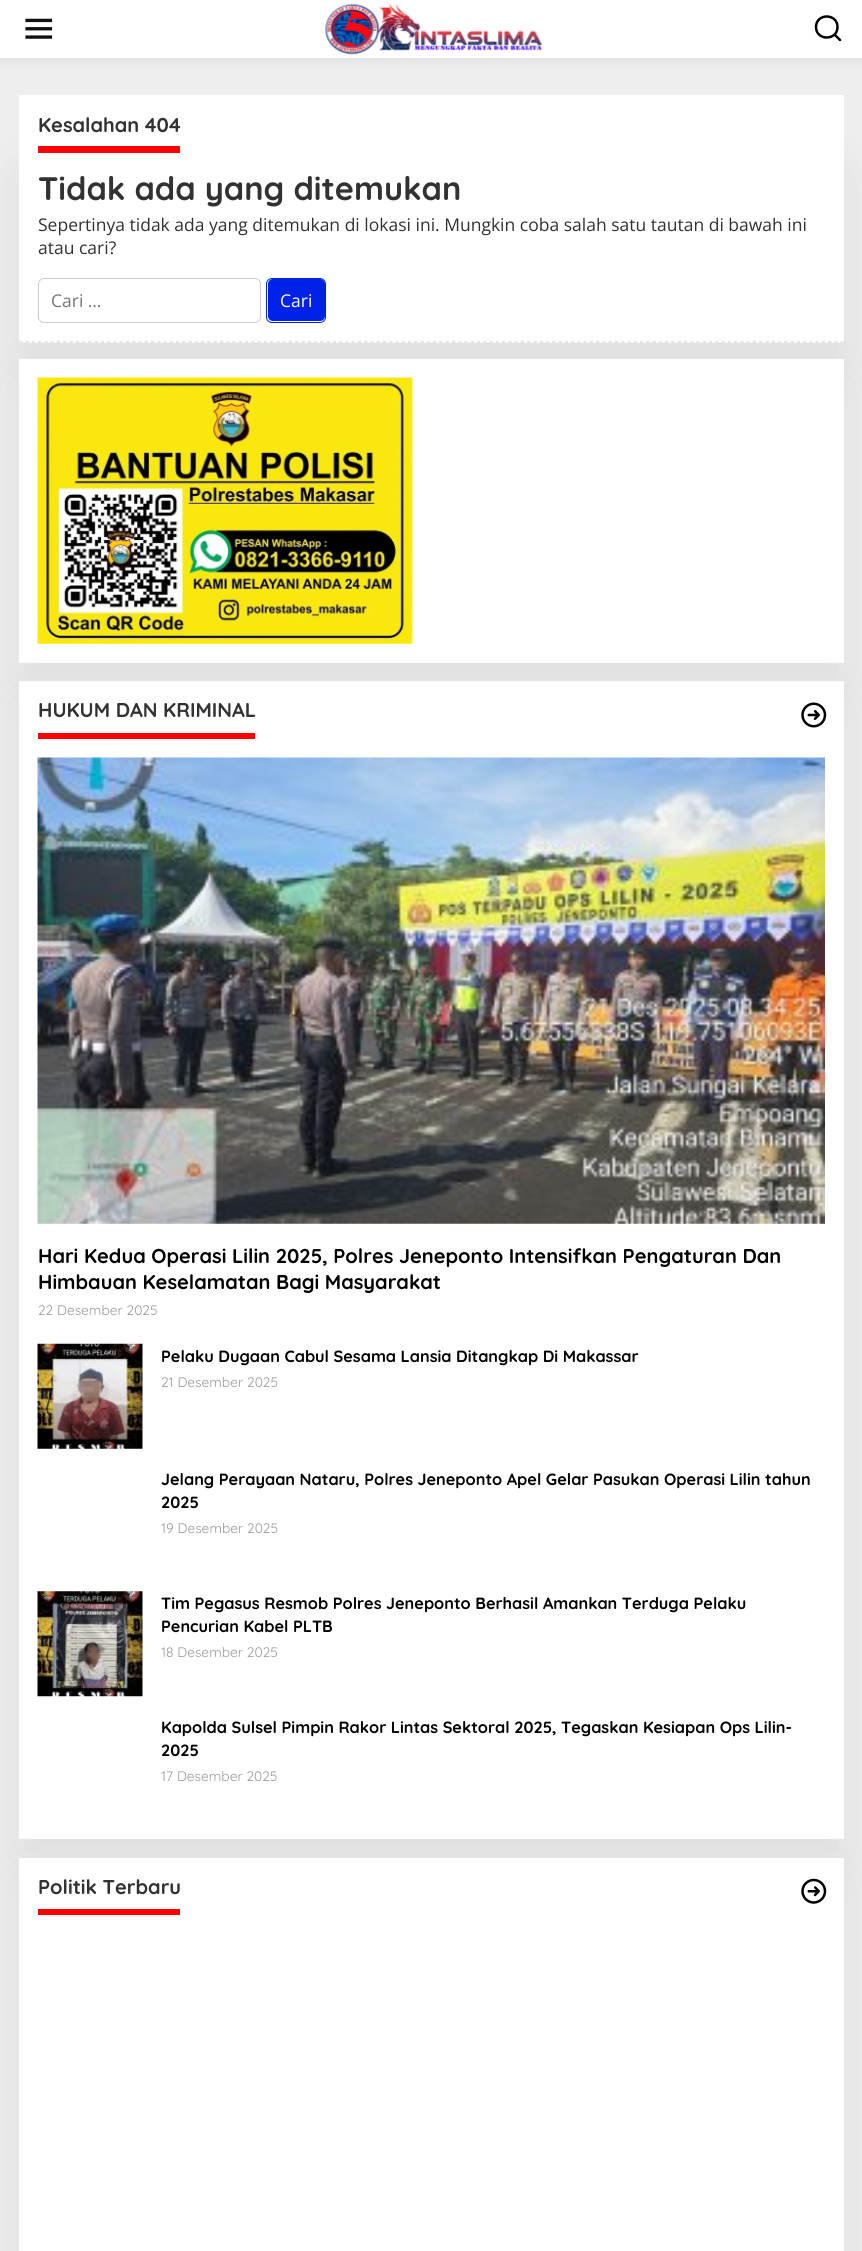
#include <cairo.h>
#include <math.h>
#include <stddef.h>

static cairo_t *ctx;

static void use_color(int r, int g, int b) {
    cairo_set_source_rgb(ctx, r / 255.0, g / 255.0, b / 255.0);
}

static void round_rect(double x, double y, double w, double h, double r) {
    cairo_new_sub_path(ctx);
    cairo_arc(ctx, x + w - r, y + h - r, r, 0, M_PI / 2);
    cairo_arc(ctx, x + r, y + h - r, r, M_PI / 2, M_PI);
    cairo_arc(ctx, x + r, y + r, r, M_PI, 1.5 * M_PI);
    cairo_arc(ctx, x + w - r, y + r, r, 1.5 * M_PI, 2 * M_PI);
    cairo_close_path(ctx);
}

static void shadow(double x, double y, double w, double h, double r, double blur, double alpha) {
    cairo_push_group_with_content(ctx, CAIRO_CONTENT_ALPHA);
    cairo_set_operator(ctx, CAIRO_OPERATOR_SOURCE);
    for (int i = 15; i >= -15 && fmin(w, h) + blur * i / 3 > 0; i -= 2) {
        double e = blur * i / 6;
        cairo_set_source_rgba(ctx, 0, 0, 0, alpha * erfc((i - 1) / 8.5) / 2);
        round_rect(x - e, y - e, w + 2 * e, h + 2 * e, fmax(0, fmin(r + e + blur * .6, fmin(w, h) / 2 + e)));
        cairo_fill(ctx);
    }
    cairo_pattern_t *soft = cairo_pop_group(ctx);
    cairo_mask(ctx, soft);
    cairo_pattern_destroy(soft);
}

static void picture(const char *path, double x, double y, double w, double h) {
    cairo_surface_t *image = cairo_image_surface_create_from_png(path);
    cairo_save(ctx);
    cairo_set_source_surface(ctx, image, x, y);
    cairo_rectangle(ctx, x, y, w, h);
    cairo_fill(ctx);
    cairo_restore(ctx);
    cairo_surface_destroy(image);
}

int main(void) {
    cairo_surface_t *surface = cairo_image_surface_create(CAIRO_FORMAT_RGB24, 862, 2251);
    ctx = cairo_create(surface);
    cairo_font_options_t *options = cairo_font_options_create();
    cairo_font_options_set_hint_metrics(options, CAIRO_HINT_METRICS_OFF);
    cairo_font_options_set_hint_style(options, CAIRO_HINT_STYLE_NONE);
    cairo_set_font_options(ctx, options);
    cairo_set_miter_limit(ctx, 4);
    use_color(238, 238, 238);
    cairo_paint(ctx);
    use_color(0, 0, 0);
    shadow(0, 0, 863, 58, 0, 6, 0.1);
    use_color(255, 255, 255);
    cairo_rectangle(ctx, 0, 0, 862, 58);
    cairo_fill(ctx);
    picture("img1.png", 25, 18, 28, 21);
    picture("img2.png", 325, 3, 218, 52);
    cairo_new_path(ctx);
    cairo_move_to(ctx, 840, 40);
    cairo_line_to(ctx, 834.5, 34.5);
    cairo_move_to(ctx, 837.5, 27);
    cairo_curve_to(ctx, 837.5, 41, 816, 41, 816, 27);
    cairo_curve_to(ctx, 816, 13, 837.5, 13, 837.5, 27);
    cairo_close_path(ctx);
    use_color(0, 0, 0);
    cairo_set_line_width(ctx, 2.5);
    cairo_set_line_cap(ctx, CAIRO_LINE_CAP_ROUND);
    cairo_stroke(ctx);
    use_color(0, 0, 0);
    shadow(19, 173, 825, 190, 0, 28, 0.07);
    use_color(255, 255, 255);
    cairo_rectangle(ctx, 19, 95, 825, 248);
    cairo_fill(ctx);
    use_color(255, 0, 0);
    cairo_rectangle(ctx, 38, 146, 142, 7);
    cairo_fill(ctx);
    cairo_select_font_face(ctx, "Quicksand", CAIRO_FONT_SLANT_NORMAL, CAIRO_FONT_WEIGHT_BOLD);
    cairo_set_font_size(ctx, 20);
    use_color(50, 50, 51);
    cairo_move_to(ctx, 38, 132);
    cairo_show_text(ctx, "Kesalahan 404");
    cairo_new_path(ctx);
    cairo_move_to(ctx, 19, 342);
    cairo_line_to(ctx, 844, 342);
    use_color(217, 217, 217);
    cairo_set_line_width(ctx, 1.2);
    cairo_set_line_cap(ctx, CAIRO_LINE_CAP_BUTT);
    cairo_set_dash(ctx, (double[]){3.75, 2.52}, 2, 0);
    cairo_stroke(ctx);
    cairo_set_font_size(ctx, 32.5);
    use_color(50, 50, 51);
    cairo_move_to(ctx, 38, 200);
    cairo_show_text(ctx, "Tidak ada yang ditemukan");
    cairo_select_font_face(ctx, "Open Sans", CAIRO_FONT_SLANT_NORMAL, CAIRO_FONT_WEIGHT_NORMAL);
    cairo_set_font_size(ctx, 17.5);
    cairo_move_to(ctx, 38, 231);
    cairo_show_text(ctx, "Sepertinya tidak ada yang ditemukan di lokasi ini. Mungkin coba salah satu tautan di bawah ini");
    cairo_move_to(ctx, 38, 254);
    cairo_show_text(ctx, "atau cari?");
    round_rect(38.5, 278.5, 222, 44, 5.5);
    use_color(204, 204, 204);
    cairo_set_line_width(ctx, 1);
    cairo_set_dash(ctx, NULL, 0, 0);
    cairo_stroke(ctx);
    use_color(117, 117, 117);
    cairo_move_to(ctx, 51, 307);
    cairo_show_text(ctx, "Cari …");
    use_color(0, 34, 232);
    round_rect(268, 279, 57, 42, 5);
    cairo_fill(ctx);
    round_rect(266.5, 278.5, 59, 44, 5.5);
    cairo_stroke(ctx);
    use_color(255, 255, 255);
    cairo_move_to(ctx, 280, 307);
    cairo_show_text(ctx, "Cari");
    use_color(0, 0, 0);
    shadow(19, 379, 825, 304, 0, 28, 0.07);
    use_color(255, 255, 255);
    cairo_rectangle(ctx, 19, 359, 825, 304);
    cairo_fill(ctx);
    use_color(0, 0, 0);
    shadow(19, 701, 825, 1158, 0, 28, 0.07);
    picture("img3.png", 37, 377, 376, 267);
    use_color(255, 255, 255);
    cairo_rectangle(ctx, 19, 681, 825, 1158);
    cairo_fill(ctx);
    use_color(255, 0, 0);
    cairo_rectangle(ctx, 38, 733, 217, 6);
    cairo_fill(ctx);
    cairo_select_font_face(ctx, "Quicksand", CAIRO_FONT_SLANT_NORMAL, CAIRO_FONT_WEIGHT_BOLD);
    cairo_set_font_size(ctx, 20);
    use_color(50, 50, 51);
    cairo_move_to(ctx, 38, 717);
    cairo_show_text(ctx, "HUKUM DAN KRIMINAL");
    picture("img4.png", 801, 702, 26, 26);
    picture("img5.png", 37, 757, 788, 467);
    use_color(0, 0, 0);
    cairo_move_to(ctx, 38, 1263);
    cairo_show_text(ctx, "Hari Kedua Operasi Lilin 2025, Polres Jeneponto Intensifkan Pengaturan Dan");
    cairo_move_to(ctx, 38, 1289);
    cairo_show_text(ctx, "Himbauan Keselamatan Bagi Masyarakat");
    cairo_select_font_face(ctx, "Quicksand", CAIRO_FONT_SLANT_NORMAL, CAIRO_FONT_WEIGHT_NORMAL);
    cairo_set_font_size(ctx, 13.75);
    use_color(153, 153, 153);
    cairo_move_to(ctx, 38, 1315);
    cairo_show_text(ctx, "22 Desember 2025");
    picture("img6.png", 37, 1343, 106, 106);
    cairo_select_font_face(ctx, "Quicksand", CAIRO_FONT_SLANT_NORMAL, CAIRO_FONT_WEIGHT_BOLD);
    cairo_set_font_size(ctx, 16.25);
    use_color(0, 0, 0);
    cairo_move_to(ctx, 161, 1362);
    cairo_show_text(ctx, "Pelaku Dugaan Cabul Sesama Lansia Ditangkap Di Makassar");
    cairo_select_font_face(ctx, "Quicksand", CAIRO_FONT_SLANT_NORMAL, CAIRO_FONT_WEIGHT_NORMAL);
    cairo_set_font_size(ctx, 13.75);
    use_color(153, 153, 153);
    cairo_move_to(ctx, 161, 1387);
    cairo_show_text(ctx, "21 Desember 2025");
    cairo_select_font_face(ctx, "Quicksand", CAIRO_FONT_SLANT_NORMAL, CAIRO_FONT_WEIGHT_BOLD);
    cairo_set_font_size(ctx, 16.25);
    use_color(0, 0, 0);
    cairo_move_to(ctx, 161, 1485);
    cairo_show_text(ctx, "Jelang Perayaan Nataru, Polres Jeneponto Apel Gelar Pasukan Operasi Lilin tahun");
    cairo_move_to(ctx, 161, 1508);
    cairo_show_text(ctx, "2025");
    cairo_select_font_face(ctx, "Quicksand", CAIRO_FONT_SLANT_NORMAL, CAIRO_FONT_WEIGHT_NORMAL);
    cairo_set_font_size(ctx, 13.75);
    use_color(153, 153, 153);
    cairo_move_to(ctx, 161, 1533);
    cairo_show_text(ctx, "19 Desember 2025");
    picture("img7.png", 37, 1591, 106, 106);
    cairo_select_font_face(ctx, "Quicksand", CAIRO_FONT_SLANT_NORMAL, CAIRO_FONT_WEIGHT_BOLD);
    cairo_set_font_size(ctx, 16.25);
    use_color(0, 0, 0);
    cairo_move_to(ctx, 161, 1609);
    cairo_show_text(ctx, "Tim Pegasus Resmob Polres Jeneponto Berhasil Amankan Terduga Pelaku");
    cairo_move_to(ctx, 161, 1632);
    cairo_show_text(ctx, "Pencurian Kabel PLTB");
    cairo_select_font_face(ctx, "Quicksand", CAIRO_FONT_SLANT_NORMAL, CAIRO_FONT_WEIGHT_NORMAL);
    cairo_set_font_size(ctx, 13.75);
    use_color(153, 153, 153);
    cairo_move_to(ctx, 161, 1657);
    cairo_show_text(ctx, "18 Desember 2025");
    cairo_select_font_face(ctx, "Quicksand", CAIRO_FONT_SLANT_NORMAL, CAIRO_FONT_WEIGHT_BOLD);
    cairo_set_font_size(ctx, 16.25);
    use_color(0, 0, 0);
    cairo_move_to(ctx, 161, 1733);
    cairo_show_text(ctx, "Kapolda Sulsel Pimpin Rakor Lintas Sektoral 2025, Tegaskan Kesiapan Ops Lilin-");
    cairo_move_to(ctx, 161, 1756);
    cairo_show_text(ctx, "2025");
    cairo_select_font_face(ctx, "Quicksand", CAIRO_FONT_SLANT_NORMAL, CAIRO_FONT_WEIGHT_NORMAL);
    cairo_set_font_size(ctx, 13.75);
    use_color(153, 153, 153);
    cairo_move_to(ctx, 161, 1781);
    cairo_show_text(ctx, "17 Desember 2025");
    use_color(0, 0, 0);
    shadow(19, 1878, 825, 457, 0, 28, 0.07);
    use_color(255, 255, 255);
    cairo_rectangle(ctx, 19, 1858, 825, 393);
    cairo_fill(ctx);
    use_color(255, 0, 0);
    cairo_rectangle(ctx, 38, 1909, 142, 6);
    cairo_fill(ctx);
    cairo_select_font_face(ctx, "Quicksand", CAIRO_FONT_SLANT_NORMAL, CAIRO_FONT_WEIGHT_BOLD);
    cairo_set_font_size(ctx, 20);
    use_color(50, 50, 51);
    cairo_move_to(ctx, 38, 1894);
    cairo_show_text(ctx, "Politik Terbaru");
    picture("img8.png", 801, 1878, 26, 26);
    cairo_surface_write_to_png(surface, "result.png");
    cairo_font_options_destroy(options);
    cairo_destroy(ctx);
    cairo_surface_destroy(surface);
    return 0;
}
